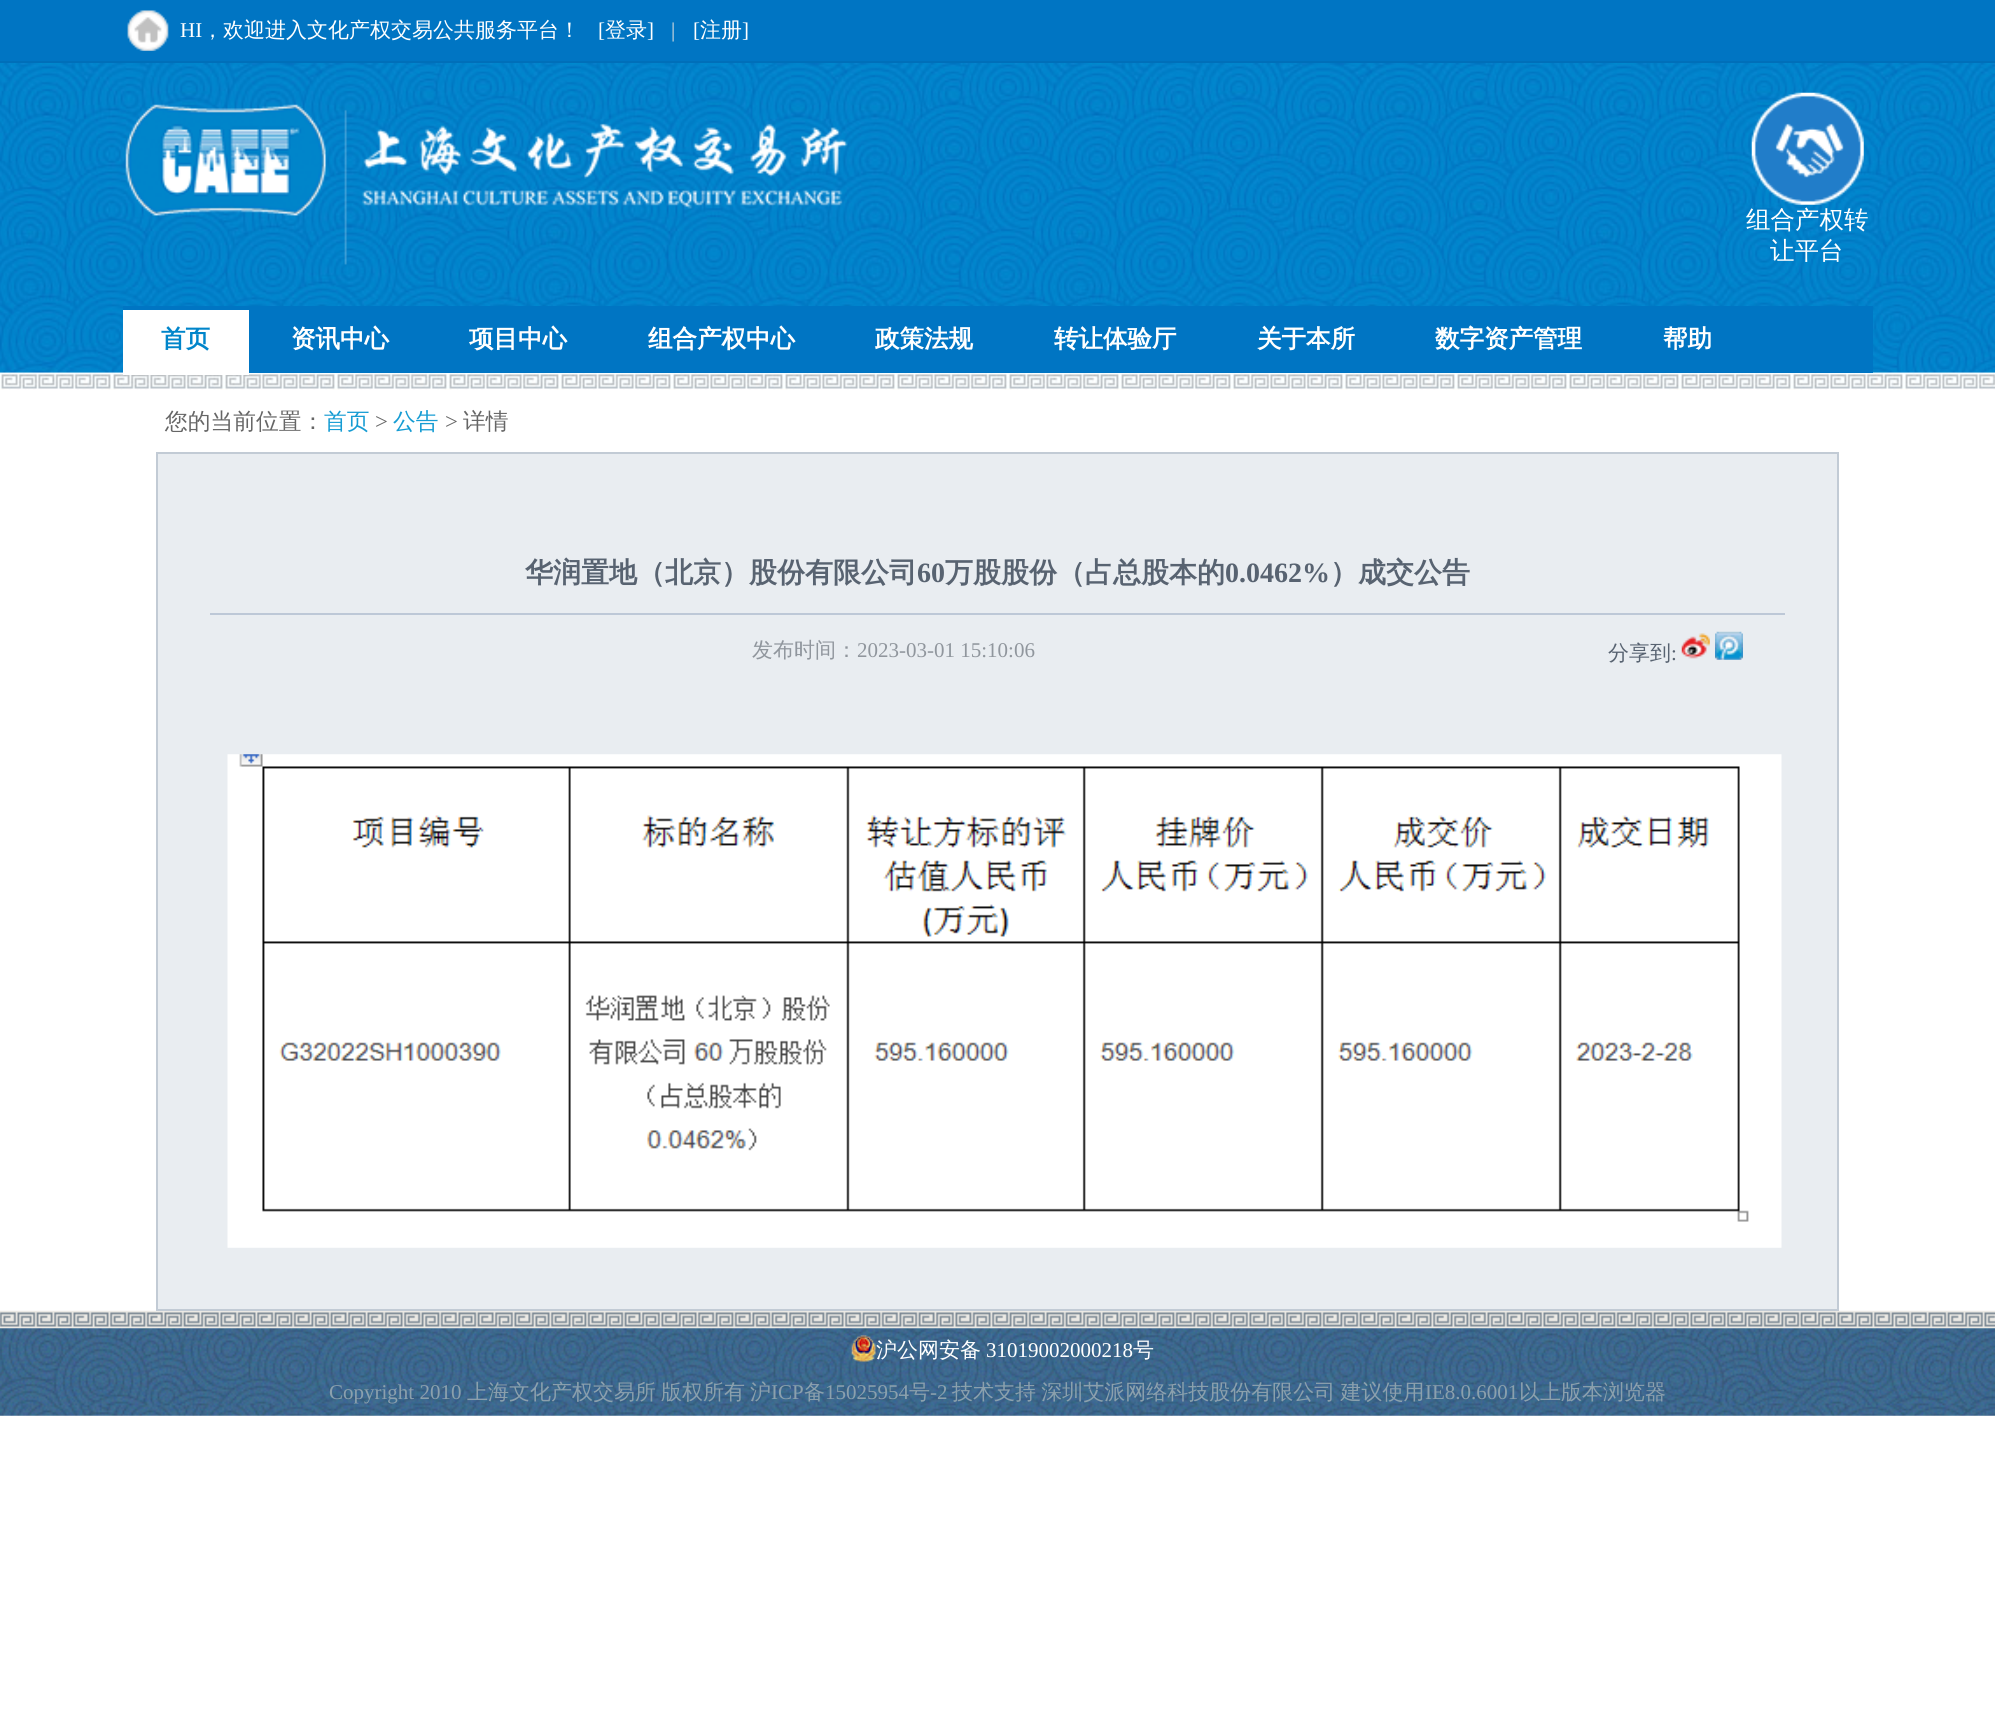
#include <cairo.h>
#include <math.h>
#include <stddef.h>

static cairo_t *ctx;

static void use_color(int r, int g, int b) {
    cairo_set_source_rgb(ctx, r / 255.0, g / 255.0, b / 255.0);
}

static void spaced_text(double x, double y, const char *s, double letter, double word) {
    cairo_move_to(ctx, x, y);
    while (*s) {
        char ch[5] = {0};
        int n = 0;
        do ch[n++] = *s++; while ((*s & 0xC0) == 0x80);
        cairo_show_text(ctx, ch);
        cairo_rel_move_to(ctx, letter + word * (*ch == ' '), 0);
    }
}

static void picture(const char *path, double x, double y, double w, double h) {
    cairo_surface_t *image = cairo_image_surface_create_from_png(path);
    cairo_save(ctx);
    cairo_set_source_surface(ctx, image, x, y);
    cairo_rectangle(ctx, x, y, w, h);
    cairo_fill(ctx);
    cairo_restore(ctx);
    cairo_surface_destroy(image);
}

int main(void) {
    cairo_surface_t *surface = cairo_image_surface_create(CAIRO_FORMAT_RGB24, 1995, 1725);
    ctx = cairo_create(surface);
    cairo_font_options_t *options = cairo_font_options_create();
    cairo_font_options_set_hint_metrics(options, CAIRO_HINT_METRICS_OFF);
    cairo_font_options_set_hint_style(options, CAIRO_HINT_STYLE_NONE);
    cairo_set_font_options(ctx, options);
    cairo_set_miter_limit(ctx, 4);
    use_color(255, 255, 255);
    cairo_paint(ctx);
    use_color(0, 117, 195);
    cairo_rectangle(ctx, 0, 0, 1995, 61);
    cairo_fill(ctx);
    use_color(0, 111, 185);
    cairo_rectangle(ctx, 0, 61, 1995, 2);
    cairo_fill(ctx);
    picture("img1.png", 127, 10, 42, 41);
    cairo_select_font_face(ctx, "Liberation Serif", CAIRO_FONT_SLANT_NORMAL, CAIRO_FONT_WEIGHT_NORMAL);
    cairo_set_font_size(ctx, 21);
    use_color(255, 255, 255);
    cairo_move_to(ctx, 180, 37);
    cairo_show_text(ctx, "HI");
    cairo_select_font_face(ctx, "WenQuanYi Zen Hei Medium", CAIRO_FONT_SLANT_NORMAL, CAIRO_FONT_WEIGHT_NORMAL);
    cairo_move_to(ctx, 202, 37);
    cairo_show_text(ctx, "，欢迎进入文化产权交易公共服务平台！");
    cairo_select_font_face(ctx, "Liberation Serif", CAIRO_FONT_SLANT_NORMAL, CAIRO_FONT_WEIGHT_NORMAL);
    cairo_move_to(ctx, 598, 37);
    cairo_show_text(ctx, "[");
    cairo_select_font_face(ctx, "WenQuanYi Zen Hei Medium", CAIRO_FONT_SLANT_NORMAL, CAIRO_FONT_WEIGHT_NORMAL);
    cairo_move_to(ctx, 605, 37);
    cairo_show_text(ctx, "登录");
    cairo_select_font_face(ctx, "Liberation Serif", CAIRO_FONT_SLANT_NORMAL, CAIRO_FONT_WEIGHT_NORMAL);
    cairo_move_to(ctx, 647, 37);
    cairo_show_text(ctx, "]");
    use_color(223, 223, 223);
    cairo_move_to(ctx, 671, 37);
    cairo_show_text(ctx, "|");
    use_color(255, 255, 255);
    cairo_move_to(ctx, 693, 37);
    cairo_show_text(ctx, "[");
    cairo_select_font_face(ctx, "WenQuanYi Zen Hei Medium", CAIRO_FONT_SLANT_NORMAL, CAIRO_FONT_WEIGHT_NORMAL);
    cairo_move_to(ctx, 700, 37);
    cairo_show_text(ctx, "注册");
    cairo_select_font_face(ctx, "Liberation Serif", CAIRO_FONT_SLANT_NORMAL, CAIRO_FONT_WEIGHT_NORMAL);
    cairo_move_to(ctx, 742, 37);
    cairo_show_text(ctx, "]");
    picture("img2.png", 0, 63, 1995, 310);
    picture("img3.png", 125, 104, 723, 161);
    picture("img4.png", 1751, 92, 113, 113);
    cairo_select_font_face(ctx, "WenQuanYi Zen Hei Medium", CAIRO_FONT_SLANT_NORMAL, CAIRO_FONT_WEIGHT_NORMAL);
    cairo_set_font_size(ctx, 24.5);
    cairo_move_to(ctx, 1746, 228);
    cairo_show_text(ctx, "组合产权转");
    cairo_move_to(ctx, 1770, 259);
    cairo_show_text(ctx, "让平台");
    picture("img5.png", 0, 372, 1995, 18);
    use_color(0, 117, 195);
    cairo_rectangle(ctx, 123, 306, 1750, 67);
    cairo_fill(ctx);
    use_color(255, 255, 255);
    cairo_rectangle(ctx, 123, 310, 126, 65);
    cairo_fill(ctx);
    cairo_select_font_face(ctx, "WenQuanYi Zen Hei", CAIRO_FONT_SLANT_NORMAL, CAIRO_FONT_WEIGHT_BOLD);
    use_color(0, 133, 202);
    cairo_move_to(ctx, 161, 347);
    cairo_show_text(ctx, "首页");
    use_color(255, 255, 255);
    cairo_move_to(ctx, 291, 347);
    cairo_show_text(ctx, "资讯中心");
    cairo_move_to(ctx, 469, 347);
    cairo_show_text(ctx, "项目中心");
    cairo_move_to(ctx, 648, 347);
    cairo_show_text(ctx, "组合产权中心");
    cairo_move_to(ctx, 875, 347);
    cairo_show_text(ctx, "政策法规");
    cairo_move_to(ctx, 1054, 347);
    cairo_show_text(ctx, "转让体验厅");
    cairo_move_to(ctx, 1257, 347);
    cairo_show_text(ctx, "关于本所");
    cairo_move_to(ctx, 1435, 347);
    cairo_show_text(ctx, "数字资产管理");
    cairo_move_to(ctx, 1663, 347);
    cairo_show_text(ctx, "帮助");
    cairo_select_font_face(ctx, "WenQuanYi Zen Hei Medium", CAIRO_FONT_SLANT_NORMAL, CAIRO_FONT_WEIGHT_NORMAL);
    cairo_set_font_size(ctx, 22.75);
    use_color(102, 102, 102);
    cairo_move_to(ctx, 165, 429);
    cairo_show_text(ctx, "您的当前位置：");
    use_color(22, 156, 211);
    cairo_move_to(ctx, 324, 429);
    cairo_show_text(ctx, "首页");
    cairo_select_font_face(ctx, "Liberation Serif", CAIRO_FONT_SLANT_NORMAL, CAIRO_FONT_WEIGHT_NORMAL);
    use_color(102, 102, 102);
    cairo_move_to(ctx, 375, 429);
    cairo_show_text(ctx, ">");
    cairo_select_font_face(ctx, "WenQuanYi Zen Hei Medium", CAIRO_FONT_SLANT_NORMAL, CAIRO_FONT_WEIGHT_NORMAL);
    use_color(22, 156, 211);
    cairo_move_to(ctx, 393, 429);
    cairo_show_text(ctx, "公告");
    cairo_select_font_face(ctx, "Liberation Serif", CAIRO_FONT_SLANT_NORMAL, CAIRO_FONT_WEIGHT_NORMAL);
    use_color(102, 102, 102);
    cairo_move_to(ctx, 445, 429);
    cairo_show_text(ctx, ">");
    cairo_select_font_face(ctx, "WenQuanYi Zen Hei Medium", CAIRO_FONT_SLANT_NORMAL, CAIRO_FONT_WEIGHT_NORMAL);
    cairo_move_to(ctx, 463, 429);
    cairo_show_text(ctx, "详情");
    picture("img9.png", 0, 1310, 1995, 19);
    use_color(233, 237, 241);
    cairo_rectangle(ctx, 157, 453, 1681, 857);
    cairo_fill_preserve(ctx);
    use_color(194, 203, 213);
    cairo_stroke(ctx);
    use_color(189, 200, 215);
    cairo_rectangle(ctx, 210, 613, 1575, 2);
    cairo_fill(ctx);
    cairo_select_font_face(ctx, "WenQuanYi Zen Hei", CAIRO_FONT_SLANT_NORMAL, CAIRO_FONT_WEIGHT_BOLD);
    cairo_set_font_size(ctx, 28);
    use_color(88, 99, 113);
    cairo_move_to(ctx, 525, 582);
    cairo_show_text(ctx, "华润置地（北京）股份有限公司");
    cairo_select_font_face(ctx, "Liberation Serif", CAIRO_FONT_SLANT_NORMAL, CAIRO_FONT_WEIGHT_BOLD);
    cairo_move_to(ctx, 917, 582);
    cairo_show_text(ctx, "60");
    cairo_select_font_face(ctx, "WenQuanYi Zen Hei", CAIRO_FONT_SLANT_NORMAL, CAIRO_FONT_WEIGHT_BOLD);
    cairo_move_to(ctx, 945, 582);
    cairo_show_text(ctx, "万股股份（占总股本的");
    cairo_select_font_face(ctx, "Liberation Serif", CAIRO_FONT_SLANT_NORMAL, CAIRO_FONT_WEIGHT_BOLD);
    cairo_move_to(ctx, 1225, 582);
    cairo_show_text(ctx, "0.0462%");
    cairo_select_font_face(ctx, "WenQuanYi Zen Hei", CAIRO_FONT_SLANT_NORMAL, CAIRO_FONT_WEIGHT_BOLD);
    cairo_move_to(ctx, 1330, 582);
    cairo_show_text(ctx, "）成交公告");
    cairo_select_font_face(ctx, "WenQuanYi Zen Hei Medium", CAIRO_FONT_SLANT_NORMAL, CAIRO_FONT_WEIGHT_NORMAL);
    cairo_set_font_size(ctx, 21);
    use_color(144, 150, 157);
    cairo_move_to(ctx, 752, 657);
    cairo_show_text(ctx, "发布时间：");
    cairo_select_font_face(ctx, "Liberation Serif", CAIRO_FONT_SLANT_NORMAL, CAIRO_FONT_WEIGHT_NORMAL);
    cairo_move_to(ctx, 857, 657);
    cairo_show_text(ctx, "2023-03-01 15:10:06");
    cairo_select_font_face(ctx, "WenQuanYi Zen Hei Medium", CAIRO_FONT_SLANT_NORMAL, CAIRO_FONT_WEIGHT_NORMAL);
    use_color(88, 99, 113);
    cairo_move_to(ctx, 1608, 660);
    cairo_show_text(ctx, "分享到");
    cairo_select_font_face(ctx, "Liberation Serif", CAIRO_FONT_SLANT_NORMAL, CAIRO_FONT_WEIGHT_NORMAL);
    cairo_move_to(ctx, 1671, 660);
    cairo_show_text(ctx, ":");
    picture("img6.png", 1681, 633, 29, 26);
    picture("img7.png", 1715, 631, 28, 29);
    picture("img8.png", 227, 754, 1555, 494);
    picture("img10.png", 0, 1328, 1995, 88);
    picture("img11.png", 851, 1335, 25, 27);
    cairo_select_font_face(ctx, "WenQuanYi Zen Hei Medium", CAIRO_FONT_SLANT_NORMAL, CAIRO_FONT_WEIGHT_NORMAL);
    use_color(255, 255, 255);
    cairo_move_to(ctx, 876, 1357);
    cairo_show_text(ctx, "沪公网安备");
    cairo_select_font_face(ctx, "Liberation Serif", CAIRO_FONT_SLANT_NORMAL, CAIRO_FONT_WEIGHT_NORMAL);
    cairo_move_to(ctx, 986, 1357);
    cairo_show_text(ctx, "31019002000218");
    cairo_select_font_face(ctx, "WenQuanYi Zen Hei Medium", CAIRO_FONT_SLANT_NORMAL, CAIRO_FONT_WEIGHT_NORMAL);
    cairo_move_to(ctx, 1133, 1357);
    cairo_show_text(ctx, "号");
    cairo_select_font_face(ctx, "Liberation Serif", CAIRO_FONT_SLANT_NORMAL, CAIRO_FONT_WEIGHT_NORMAL);
    use_color(139, 160, 173);
    cairo_move_to(ctx, 329, 1399);
    cairo_show_text(ctx, "Copyright 2010");
    cairo_select_font_face(ctx, "WenQuanYi Zen Hei Medium", CAIRO_FONT_SLANT_NORMAL, CAIRO_FONT_WEIGHT_NORMAL);
    cairo_move_to(ctx, 467, 1399);
    cairo_show_text(ctx, "上海文化产权交易所");
    cairo_move_to(ctx, 661, 1399);
    cairo_show_text(ctx, "版权所有");
    cairo_move_to(ctx, 750, 1399);
    cairo_show_text(ctx, "沪");
    cairo_select_font_face(ctx, "Liberation Serif", CAIRO_FONT_SLANT_NORMAL, CAIRO_FONT_WEIGHT_NORMAL);
    cairo_move_to(ctx, 771, 1399);
    cairo_show_text(ctx, "ICP");
    cairo_select_font_face(ctx, "WenQuanYi Zen Hei Medium", CAIRO_FONT_SLANT_NORMAL, CAIRO_FONT_WEIGHT_NORMAL);
    cairo_move_to(ctx, 804, 1399);
    cairo_show_text(ctx, "备");
    cairo_select_font_face(ctx, "Liberation Serif", CAIRO_FONT_SLANT_NORMAL, CAIRO_FONT_WEIGHT_NORMAL);
    cairo_move_to(ctx, 825, 1399);
    cairo_show_text(ctx, "15025954");
    cairo_select_font_face(ctx, "WenQuanYi Zen Hei Medium", CAIRO_FONT_SLANT_NORMAL, CAIRO_FONT_WEIGHT_NORMAL);
    cairo_move_to(ctx, 909, 1399);
    cairo_show_text(ctx, "号");
    cairo_select_font_face(ctx, "Liberation Serif", CAIRO_FONT_SLANT_NORMAL, CAIRO_FONT_WEIGHT_NORMAL);
    cairo_move_to(ctx, 930, 1399);
    cairo_show_text(ctx, "-2");
    cairo_select_font_face(ctx, "WenQuanYi Zen Hei Medium", CAIRO_FONT_SLANT_NORMAL, CAIRO_FONT_WEIGHT_NORMAL);
    spaced_text(952, 1399, "技术支持 深圳艾派网络科技股份有限公司 建议使用", 0, -1);
    cairo_select_font_face(ctx, "Liberation Serif", CAIRO_FONT_SLANT_NORMAL, CAIRO_FONT_WEIGHT_NORMAL);
    cairo_move_to(ctx, 1425, 1399);
    cairo_show_text(ctx, "IE8.0.6001");
    cairo_select_font_face(ctx, "WenQuanYi Zen Hei Medium", CAIRO_FONT_SLANT_NORMAL, CAIRO_FONT_WEIGHT_NORMAL);
    cairo_move_to(ctx, 1519, 1399);
    cairo_show_text(ctx, "以上版本浏览器");
    cairo_surface_write_to_png(surface, "result.png");
    cairo_font_options_destroy(options);
    cairo_destroy(ctx);
    cairo_surface_destroy(surface);
    return 0;
}
